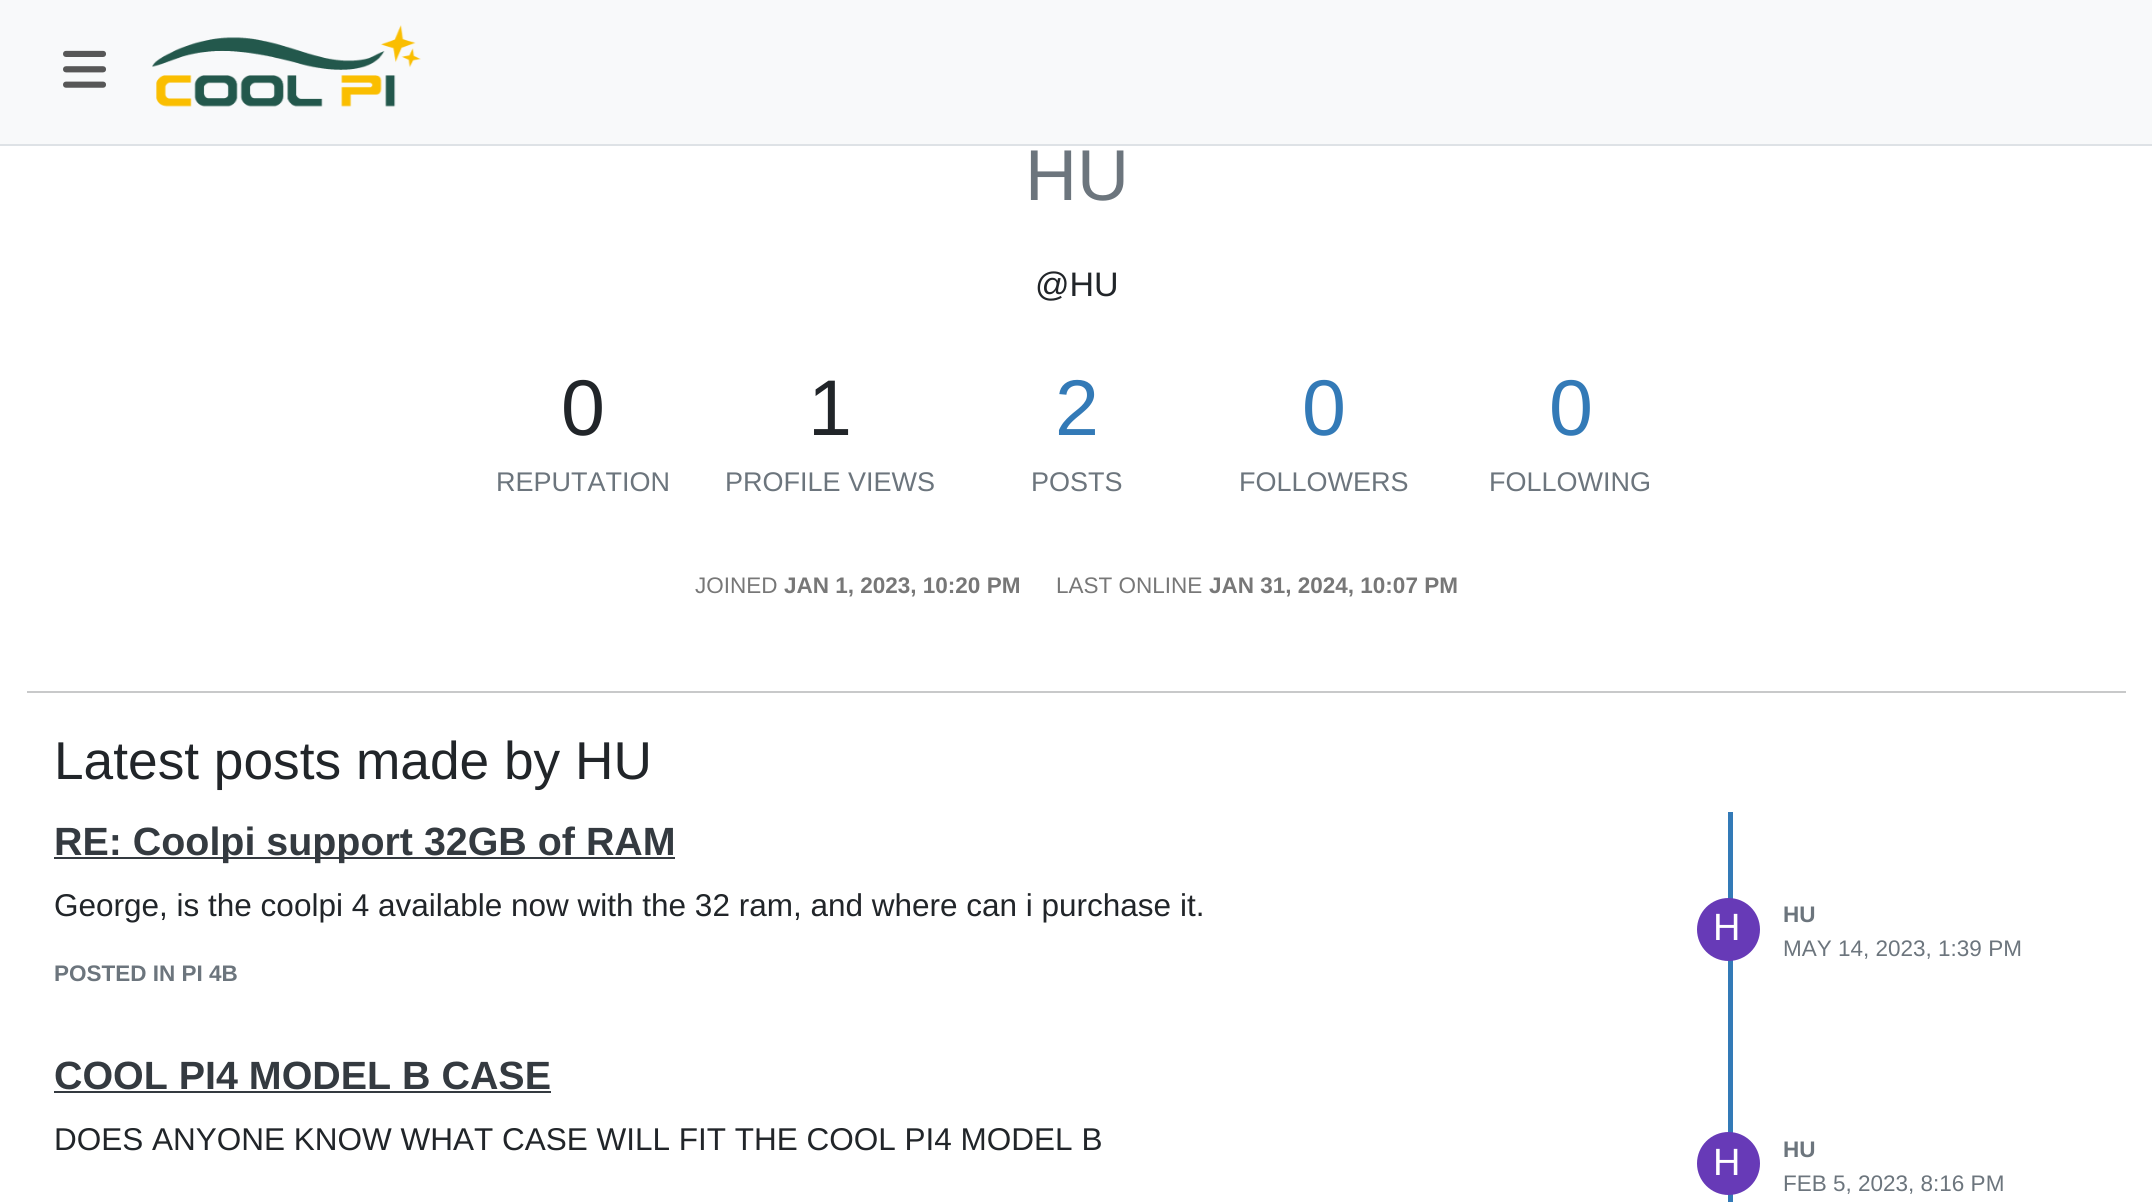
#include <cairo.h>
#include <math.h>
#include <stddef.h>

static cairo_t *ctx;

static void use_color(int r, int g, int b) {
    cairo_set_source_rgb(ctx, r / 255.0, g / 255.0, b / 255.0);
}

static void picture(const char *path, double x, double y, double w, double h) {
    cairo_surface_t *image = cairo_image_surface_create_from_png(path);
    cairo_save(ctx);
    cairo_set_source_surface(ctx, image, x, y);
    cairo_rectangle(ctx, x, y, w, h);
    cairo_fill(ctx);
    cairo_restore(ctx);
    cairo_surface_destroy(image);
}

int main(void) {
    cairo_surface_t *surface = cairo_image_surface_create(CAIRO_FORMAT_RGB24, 2152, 1202);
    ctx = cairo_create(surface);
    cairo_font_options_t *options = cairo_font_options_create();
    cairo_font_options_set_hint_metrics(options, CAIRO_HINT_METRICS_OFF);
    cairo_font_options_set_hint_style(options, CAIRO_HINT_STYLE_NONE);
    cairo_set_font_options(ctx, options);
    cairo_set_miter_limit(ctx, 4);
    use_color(255, 255, 255);
    cairo_paint(ctx);
    use_color(248, 249, 250);
    cairo_rectangle(ctx, 0, 0, 2152, 144);
    cairo_fill(ctx);
    use_color(222, 226, 230);
    cairo_rectangle(ctx, 0, 144, 2152, 2);
    cairo_fill(ctx);
    picture("img1.png", 63, 50, 43, 38);
    picture("img2.png", 152, 25, 269, 82);
    cairo_select_font_face(ctx, "Liberation Sans", CAIRO_FONT_SLANT_NORMAL, CAIRO_FONT_WEIGHT_NORMAL);
    cairo_set_font_size(ctx, 72);
    use_color(108, 117, 125);
    cairo_move_to(ctx, 1025, 200);
    cairo_show_text(ctx, "HU");
    cairo_set_font_size(ctx, 34);
    use_color(33, 37, 41);
    cairo_move_to(ctx, 1035, 296);
    cairo_show_text(ctx, "@HU");
    cairo_set_font_size(ctx, 79);
    cairo_move_to(ctx, 561, 435);
    cairo_show_text(ctx, "0");
    cairo_set_font_size(ctx, 27);
    use_color(108, 117, 125);
    cairo_move_to(ctx, 496, 491);
    cairo_show_text(ctx, "REPUTATION");
    cairo_set_font_size(ctx, 79);
    use_color(33, 37, 41);
    cairo_move_to(ctx, 808, 435);
    cairo_show_text(ctx, "1");
    cairo_set_font_size(ctx, 27);
    use_color(108, 117, 125);
    cairo_move_to(ctx, 725, 491);
    cairo_show_text(ctx, "PROFILE VIEWS");
    cairo_set_font_size(ctx, 79);
    use_color(51, 122, 183);
    cairo_move_to(ctx, 1055, 435);
    cairo_show_text(ctx, "2");
    cairo_set_font_size(ctx, 27);
    use_color(108, 117, 125);
    cairo_move_to(ctx, 1031, 491);
    cairo_show_text(ctx, "POSTS");
    cairo_set_font_size(ctx, 79);
    use_color(51, 122, 183);
    cairo_move_to(ctx, 1302, 435);
    cairo_show_text(ctx, "0");
    cairo_set_font_size(ctx, 27);
    use_color(108, 117, 125);
    cairo_move_to(ctx, 1239, 491);
    cairo_show_text(ctx, "FOLLOWERS");
    cairo_set_font_size(ctx, 79);
    use_color(51, 122, 183);
    cairo_move_to(ctx, 1549, 435);
    cairo_show_text(ctx, "0");
    cairo_set_font_size(ctx, 27);
    use_color(108, 117, 125);
    cairo_move_to(ctx, 1489, 491);
    cairo_show_text(ctx, "FOLLOWING");
    cairo_set_font_size(ctx, 22.5);
    use_color(119, 119, 119);
    cairo_move_to(ctx, 695, 593);
    cairo_show_text(ctx, "JOINED");
    cairo_select_font_face(ctx, "Liberation Sans", CAIRO_FONT_SLANT_NORMAL, CAIRO_FONT_WEIGHT_BOLD);
    cairo_move_to(ctx, 784, 593);
    cairo_show_text(ctx, "JAN 1, 2023, 10:20 PM");
    cairo_select_font_face(ctx, "Liberation Sans", CAIRO_FONT_SLANT_NORMAL, CAIRO_FONT_WEIGHT_NORMAL);
    cairo_move_to(ctx, 1056, 593);
    cairo_show_text(ctx, "LAST ONLINE");
    cairo_select_font_face(ctx, "Liberation Sans", CAIRO_FONT_SLANT_NORMAL, CAIRO_FONT_WEIGHT_BOLD);
    cairo_move_to(ctx, 1209, 593);
    cairo_show_text(ctx, "JAN 31, 2024, 10:07 PM");
    use_color(200, 201, 202);
    cairo_rectangle(ctx, 27, 691, 2099, 2);
    cairo_fill(ctx);
    cairo_select_font_face(ctx, "Liberation Sans", CAIRO_FONT_SLANT_NORMAL, CAIRO_FONT_WEIGHT_NORMAL);
    cairo_set_font_size(ctx, 53.25);
    use_color(33, 37, 41);
    cairo_move_to(ctx, 54, 779);
    cairo_show_text(ctx, "Latest posts made by HU");
    use_color(51, 122, 183);
    cairo_rectangle(ctx, 1728, 812, 5, 390);
    cairo_fill(ctx);
    use_color(52, 58, 64);
    cairo_rectangle(ctx, 54, 857, 621, 2);
    cairo_fill(ctx);
    cairo_select_font_face(ctx, "Liberation Sans", CAIRO_FONT_SLANT_NORMAL, CAIRO_FONT_WEIGHT_BOLD);
    cairo_set_font_size(ctx, 39.4);
    cairo_move_to(ctx, 54, 855);
    cairo_show_text(ctx, "RE: Coolpi support 32GB of RAM");
    cairo_select_font_face(ctx, "Liberation Sans", CAIRO_FONT_SLANT_NORMAL, CAIRO_FONT_WEIGHT_NORMAL);
    cairo_set_font_size(ctx, 31.5);
    use_color(33, 37, 41);
    cairo_move_to(ctx, 54, 916);
    cairo_show_text(ctx, "George, is the coolpi 4 available now with the 32 ram, and where can i purchase it.");
    use_color(103, 58, 183);
    cairo_new_path(ctx);
    cairo_arc(ctx, 1728.5, 929.5, 31.5, 0, 2 * M_PI);
    cairo_fill(ctx);
    cairo_set_font_size(ctx, 38);
    use_color(255, 255, 255);
    cairo_move_to(ctx, 1713, 940);
    cairo_show_text(ctx, "H");
    cairo_select_font_face(ctx, "Liberation Sans", CAIRO_FONT_SLANT_NORMAL, CAIRO_FONT_WEIGHT_BOLD);
    cairo_set_font_size(ctx, 22.5);
    use_color(108, 117, 125);
    cairo_move_to(ctx, 1783, 922);
    cairo_show_text(ctx, "HU");
    cairo_select_font_face(ctx, "Liberation Sans", CAIRO_FONT_SLANT_NORMAL, CAIRO_FONT_WEIGHT_NORMAL);
    cairo_move_to(ctx, 1783, 956);
    cairo_show_text(ctx, "MAY 14, 2023, 1:39 PM");
    cairo_select_font_face(ctx, "Liberation Sans", CAIRO_FONT_SLANT_NORMAL, CAIRO_FONT_WEIGHT_BOLD);
    cairo_move_to(ctx, 54, 981);
    cairo_show_text(ctx, "POSTED IN PI 4B");
    cairo_set_font_size(ctx, 39.4);
    use_color(52, 58, 64);
    cairo_move_to(ctx, 54, 1089);
    cairo_show_text(ctx, "COOL PI4 MODEL B CASE");
    cairo_rectangle(ctx, 54, 1091, 497, 2);
    cairo_fill(ctx);
    cairo_select_font_face(ctx, "Liberation Sans", CAIRO_FONT_SLANT_NORMAL, CAIRO_FONT_WEIGHT_NORMAL);
    cairo_set_font_size(ctx, 31.5);
    use_color(33, 37, 41);
    cairo_move_to(ctx, 54, 1150);
    cairo_show_text(ctx, "DOES ANYONE KNOW WHAT CASE WILL FIT THE COOL PI4 MODEL B");
    use_color(103, 58, 183);
    cairo_new_path(ctx);
    cairo_arc(ctx, 1728.5, 1163.5, 31.5, 0, 2 * M_PI);
    cairo_fill(ctx);
    cairo_set_font_size(ctx, 38);
    use_color(255, 255, 255);
    cairo_move_to(ctx, 1713, 1175);
    cairo_show_text(ctx, "H");
    cairo_select_font_face(ctx, "Liberation Sans", CAIRO_FONT_SLANT_NORMAL, CAIRO_FONT_WEIGHT_BOLD);
    cairo_set_font_size(ctx, 22.5);
    use_color(108, 117, 125);
    cairo_move_to(ctx, 1783, 1157);
    cairo_show_text(ctx, "HU");
    cairo_select_font_face(ctx, "Liberation Sans", CAIRO_FONT_SLANT_NORMAL, CAIRO_FONT_WEIGHT_NORMAL);
    cairo_move_to(ctx, 1783, 1191);
    cairo_show_text(ctx, "FEB 5, 2023, 8:16 PM");
    cairo_surface_write_to_png(surface, "result.png");
    cairo_font_options_destroy(options);
    cairo_destroy(ctx);
    cairo_surface_destroy(surface);
    return 0;
}
